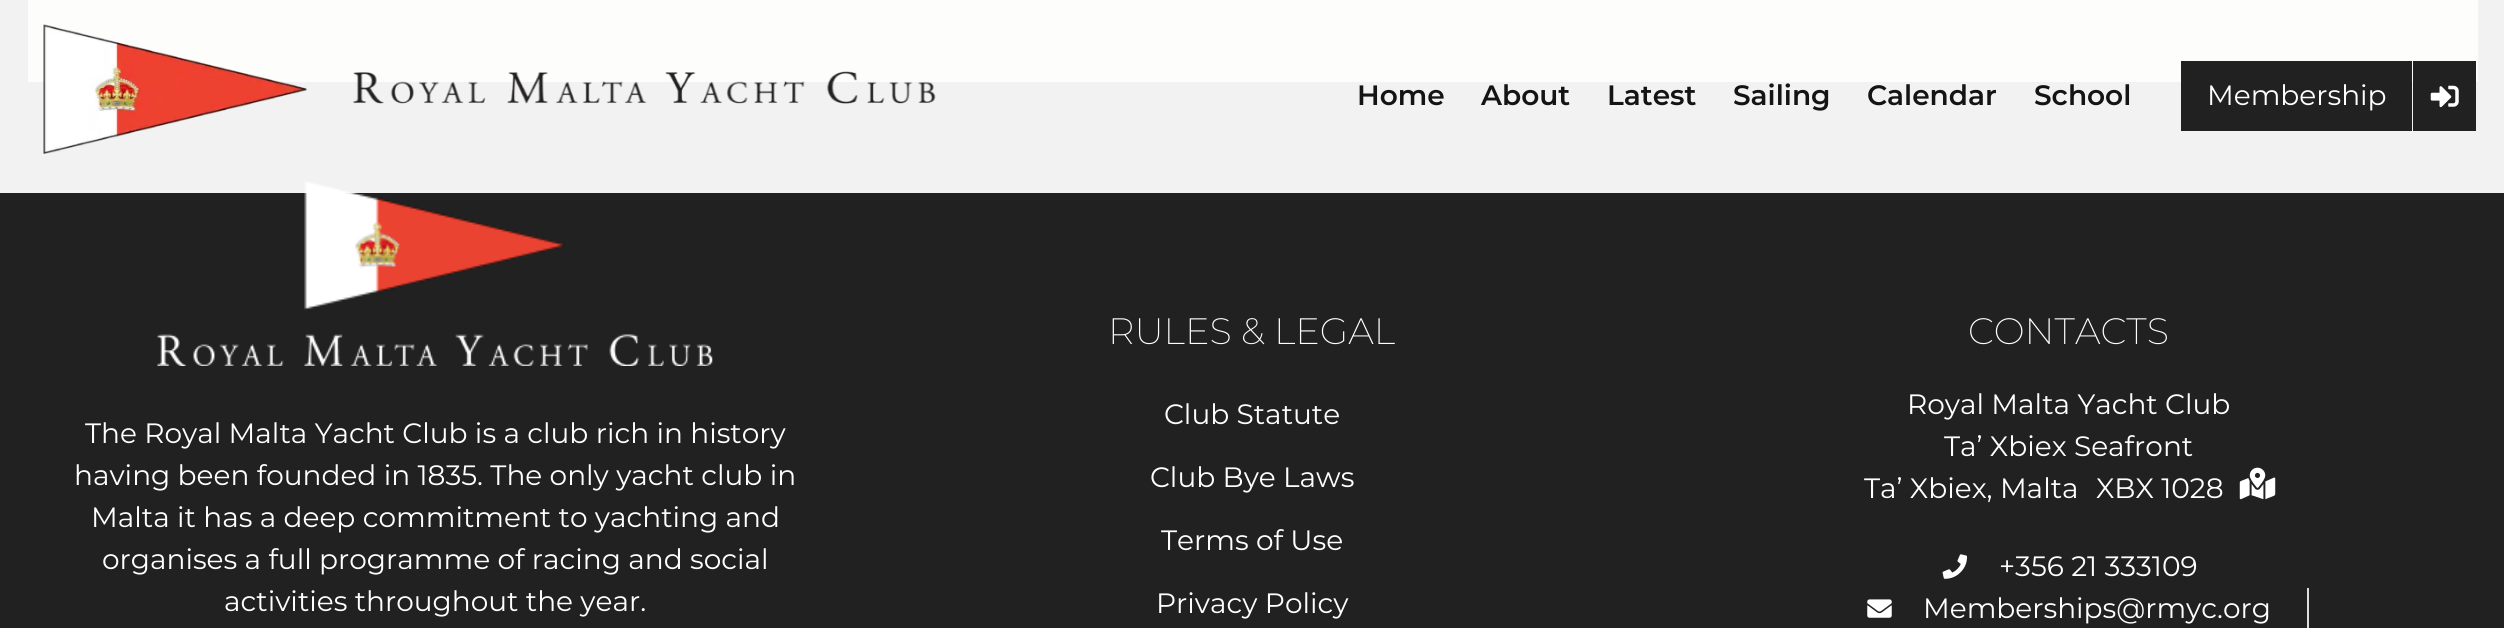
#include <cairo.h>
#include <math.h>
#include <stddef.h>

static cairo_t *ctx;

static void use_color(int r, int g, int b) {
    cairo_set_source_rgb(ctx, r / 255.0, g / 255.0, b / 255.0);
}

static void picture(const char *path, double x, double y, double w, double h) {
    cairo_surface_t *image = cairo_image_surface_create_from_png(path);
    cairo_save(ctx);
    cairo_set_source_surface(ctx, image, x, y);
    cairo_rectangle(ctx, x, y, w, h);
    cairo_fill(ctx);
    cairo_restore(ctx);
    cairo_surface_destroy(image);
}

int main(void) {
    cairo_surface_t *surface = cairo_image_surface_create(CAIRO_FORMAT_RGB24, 2504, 628);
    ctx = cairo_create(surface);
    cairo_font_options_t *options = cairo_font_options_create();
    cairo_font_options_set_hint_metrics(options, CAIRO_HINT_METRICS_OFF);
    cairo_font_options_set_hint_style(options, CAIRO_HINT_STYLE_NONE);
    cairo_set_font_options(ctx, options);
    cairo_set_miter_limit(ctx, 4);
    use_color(33, 33, 33);
    cairo_paint(ctx);
    use_color(228, 221, 205);
    cairo_rectangle(ctx, 28, 0, 2450, 82);
    cairo_fill(ctx);
    picture("img3.png", 304, 180, 261, 130);
    cairo_set_source_rgba(ctx, 1, 1, 1, 0.94);
    cairo_rectangle(ctx, 0, 0, 2504, 193);
    cairo_fill(ctx);
    picture("img1.png", 43, 24, 893, 130);
    cairo_select_font_face(ctx, "Montserrat SemiBold", CAIRO_FONT_SLANT_NORMAL, CAIRO_FONT_WEIGHT_NORMAL);
    cairo_set_font_size(ctx, 28);
    use_color(20, 20, 20);
    cairo_move_to(ctx, 1357, 105);
    cairo_show_text(ctx, "Home");
    cairo_move_to(ctx, 1481, 105);
    cairo_show_text(ctx, "About");
    cairo_move_to(ctx, 1607, 105);
    cairo_show_text(ctx, "Latest");
    cairo_move_to(ctx, 1733, 105);
    cairo_show_text(ctx, "Sailing");
    cairo_move_to(ctx, 1867, 105);
    cairo_show_text(ctx, "Calendar");
    cairo_move_to(ctx, 2034, 105);
    cairo_show_text(ctx, "School");
    use_color(33, 33, 33);
    cairo_rectangle(ctx, 2181, 61, 231, 70);
    cairo_fill(ctx);
    cairo_select_font_face(ctx, "Montserrat", CAIRO_FONT_SLANT_NORMAL, CAIRO_FONT_WEIGHT_NORMAL);
    use_color(255, 255, 255);
    cairo_move_to(ctx, 2207, 105);
    cairo_show_text(ctx, "Membership");
    use_color(33, 33, 33);
    cairo_rectangle(ctx, 2413, 61, 63, 70);
    cairo_fill(ctx);
    picture("img2.png", 2430, 85, 29, 23);
    picture("img4.png", 157, 334, 556, 32);
    use_color(255, 255, 255);
    cairo_move_to(ctx, 85, 443);
    cairo_show_text(ctx, "The Royal Malta Yacht Club is a club rich in history");
    cairo_move_to(ctx, 74, 485);
    cairo_show_text(ctx, "having been founded in 1835. The only yacht club in");
    cairo_move_to(ctx, 91, 527);
    cairo_show_text(ctx, "Malta it has a deep commitment to yachting and");
    cairo_move_to(ctx, 102, 569);
    cairo_show_text(ctx, "organises a full programme of racing and social");
    cairo_move_to(ctx, 224, 611);
    cairo_show_text(ctx, "activities throughout the year.");
    cairo_select_font_face(ctx, "Montserrat ExtraLight", CAIRO_FONT_SLANT_NORMAL, CAIRO_FONT_WEIGHT_NORMAL);
    cairo_set_font_size(ctx, 36.75);
    cairo_move_to(ctx, 1108, 344);
    cairo_show_text(ctx, "RULES & LEGAL");
    cairo_select_font_face(ctx, "Montserrat", CAIRO_FONT_SLANT_NORMAL, CAIRO_FONT_WEIGHT_NORMAL);
    cairo_set_font_size(ctx, 28);
    cairo_move_to(ctx, 1164, 424);
    cairo_show_text(ctx, "Club Statute");
    cairo_move_to(ctx, 1150, 487);
    cairo_show_text(ctx, "Club Bye Laws");
    cairo_move_to(ctx, 1161, 550);
    cairo_show_text(ctx, "Terms of Use");
    cairo_move_to(ctx, 1156, 613);
    cairo_show_text(ctx, "Privacy Policy");
    cairo_select_font_face(ctx, "Montserrat ExtraLight", CAIRO_FONT_SLANT_NORMAL, CAIRO_FONT_WEIGHT_NORMAL);
    cairo_set_font_size(ctx, 36.75);
    cairo_move_to(ctx, 1968, 344);
    cairo_show_text(ctx, "CONTACTS");
    cairo_select_font_face(ctx, "Montserrat", CAIRO_FONT_SLANT_NORMAL, CAIRO_FONT_WEIGHT_NORMAL);
    cairo_set_font_size(ctx, 28);
    cairo_move_to(ctx, 1907, 414);
    cairo_show_text(ctx, "Royal Malta Yacht Club");
    cairo_move_to(ctx, 1944, 456);
    cairo_show_text(ctx, "Ta’ Xbiex Seafront");
    cairo_move_to(ctx, 1864, 498);
    cairo_show_text(ctx, "Ta’ Xbiex, Malta");
    cairo_move_to(ctx, 2096, 498);
    cairo_show_text(ctx, "XBX 1028");
    picture("img5.png", 2239, 467, 37, 33);
    picture("img6.png", 1942, 554, 25, 25);
    cairo_move_to(ctx, 1999, 576);
    cairo_show_text(ctx, "+356 21 333109");
    picture("img7.png", 1867, 599, 25, 19);
    cairo_move_to(ctx, 1923, 618);
    cairo_show_text(ctx, "Memberships@rmyc.org");
    use_color(221, 221, 221);
    cairo_rectangle(ctx, 2307, 588, 2, 40);
    cairo_fill(ctx);
    cairo_surface_write_to_png(surface, "result.png");
    cairo_font_options_destroy(options);
    cairo_destroy(ctx);
    cairo_surface_destroy(surface);
    return 0;
}
